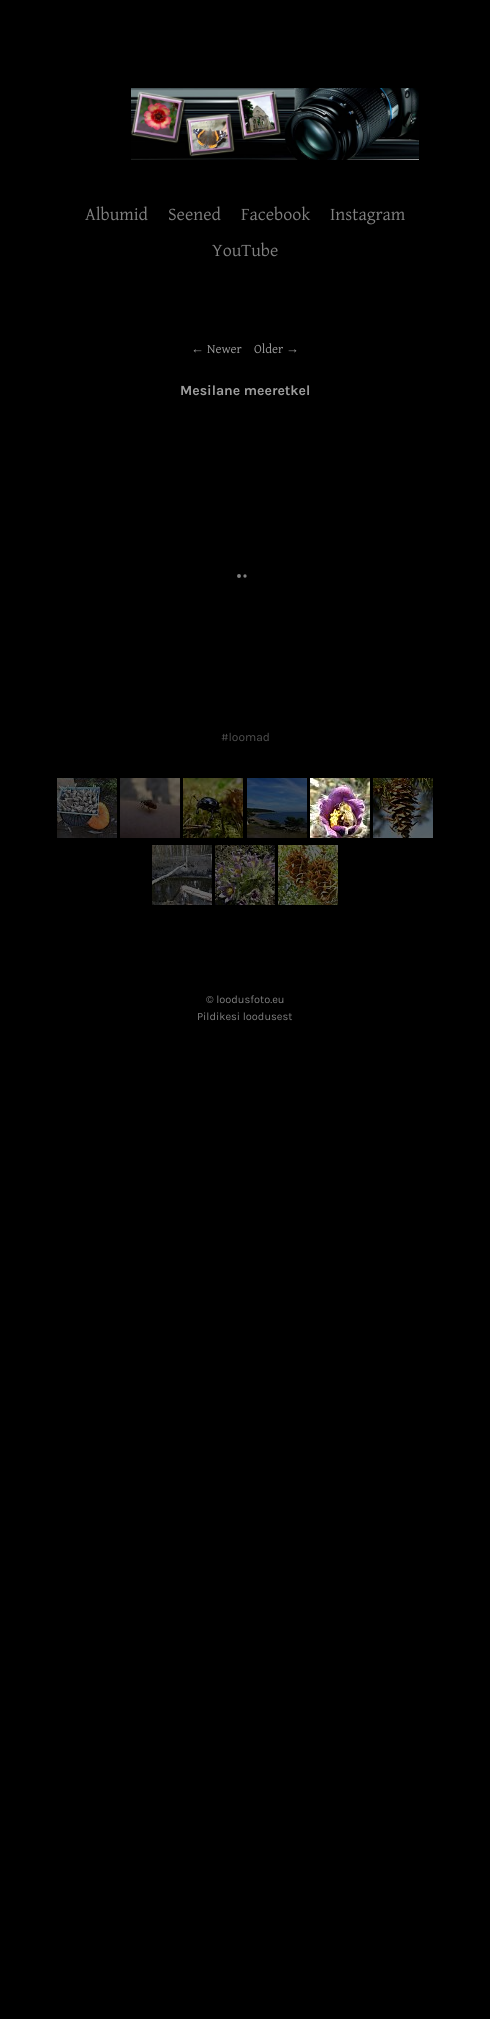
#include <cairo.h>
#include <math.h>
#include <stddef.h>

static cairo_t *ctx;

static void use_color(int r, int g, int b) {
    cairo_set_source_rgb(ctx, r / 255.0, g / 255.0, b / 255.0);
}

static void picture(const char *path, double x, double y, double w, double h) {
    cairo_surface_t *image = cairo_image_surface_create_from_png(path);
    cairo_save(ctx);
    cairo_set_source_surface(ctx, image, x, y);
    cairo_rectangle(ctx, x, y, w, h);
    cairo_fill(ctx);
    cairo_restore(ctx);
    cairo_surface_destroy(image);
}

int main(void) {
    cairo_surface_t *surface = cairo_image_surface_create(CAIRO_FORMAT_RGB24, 490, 2019);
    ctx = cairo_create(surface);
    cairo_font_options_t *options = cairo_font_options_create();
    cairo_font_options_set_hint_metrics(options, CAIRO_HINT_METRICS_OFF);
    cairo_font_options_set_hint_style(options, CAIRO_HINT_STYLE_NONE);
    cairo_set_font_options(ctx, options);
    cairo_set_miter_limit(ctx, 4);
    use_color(0, 0, 0);
    cairo_paint(ctx);
    picture("img1.png", 131, 88, 288, 72);
    cairo_select_font_face(ctx, "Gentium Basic", CAIRO_FONT_SLANT_NORMAL, CAIRO_FONT_WEIGHT_NORMAL);
    cairo_set_font_size(ctx, 18);
    use_color(129, 129, 129);
    cairo_move_to(ctx, 85, 220);
    cairo_show_text(ctx, "Albumid");
    cairo_move_to(ctx, 168, 220);
    cairo_show_text(ctx, "Seened");
    cairo_move_to(ctx, 241, 220);
    cairo_show_text(ctx, "Facebook");
    cairo_move_to(ctx, 330, 220);
    cairo_show_text(ctx, "Instagram");
    cairo_move_to(ctx, 212, 256);
    cairo_show_text(ctx, "YouTube");
    cairo_select_font_face(ctx, "Liberation Serif", CAIRO_FONT_SLANT_NORMAL, CAIRO_FONT_WEIGHT_NORMAL);
    cairo_set_font_size(ctx, 13);
    use_color(158, 158, 158);
    cairo_move_to(ctx, 191, 353);
    cairo_show_text(ctx, "←");
    cairo_select_font_face(ctx, "Gentium Basic", CAIRO_FONT_SLANT_NORMAL, CAIRO_FONT_WEIGHT_NORMAL);
    cairo_move_to(ctx, 207, 353);
    cairo_show_text(ctx, "Newer");
    cairo_move_to(ctx, 254, 353);
    cairo_show_text(ctx, "Older");
    cairo_select_font_face(ctx, "Liberation Serif", CAIRO_FONT_SLANT_NORMAL, CAIRO_FONT_WEIGHT_NORMAL);
    cairo_move_to(ctx, 286, 353);
    cairo_show_text(ctx, "→");
    cairo_select_font_face(ctx, "Karla", CAIRO_FONT_SLANT_NORMAL, CAIRO_FONT_WEIGHT_BOLD);
    cairo_set_font_size(ctx, 14);
    cairo_move_to(ctx, 180, 395);
    cairo_show_text(ctx, "Mesilane meeretkel");
    picture("img2.png", 237, 574, 10, 4);
    cairo_select_font_face(ctx, "Karla", CAIRO_FONT_SLANT_NORMAL, CAIRO_FONT_WEIGHT_NORMAL);
    cairo_set_font_size(ctx, 12);
    use_color(80, 80, 80);
    cairo_move_to(ctx, 221, 741);
    cairo_show_text(ctx, "#loomad");
    picture("img3.png", 57, 778, 60, 60);
    picture("img4.png", 120, 778, 60, 60);
    picture("img5.png", 183, 778, 60, 60);
    picture("img6.png", 247, 778, 60, 60);
    picture("img7.png", 310, 778, 60, 60);
    picture("img8.png", 373, 778, 60, 60);
    picture("img9.png", 152, 845, 60, 60);
    picture("img10.png", 215, 845, 60, 60);
    picture("img11.png", 278, 845, 60, 60);
    cairo_set_font_size(ctx, 11);
    use_color(129, 129, 129);
    cairo_move_to(ctx, 206, 1003);
    cairo_show_text(ctx, "© loodusfoto.eu");
    cairo_move_to(ctx, 197, 1020);
    cairo_show_text(ctx, "Pildikesi loodusest");
    cairo_surface_write_to_png(surface, "result.png");
    cairo_font_options_destroy(options);
    cairo_destroy(ctx);
    cairo_surface_destroy(surface);
    return 0;
}
